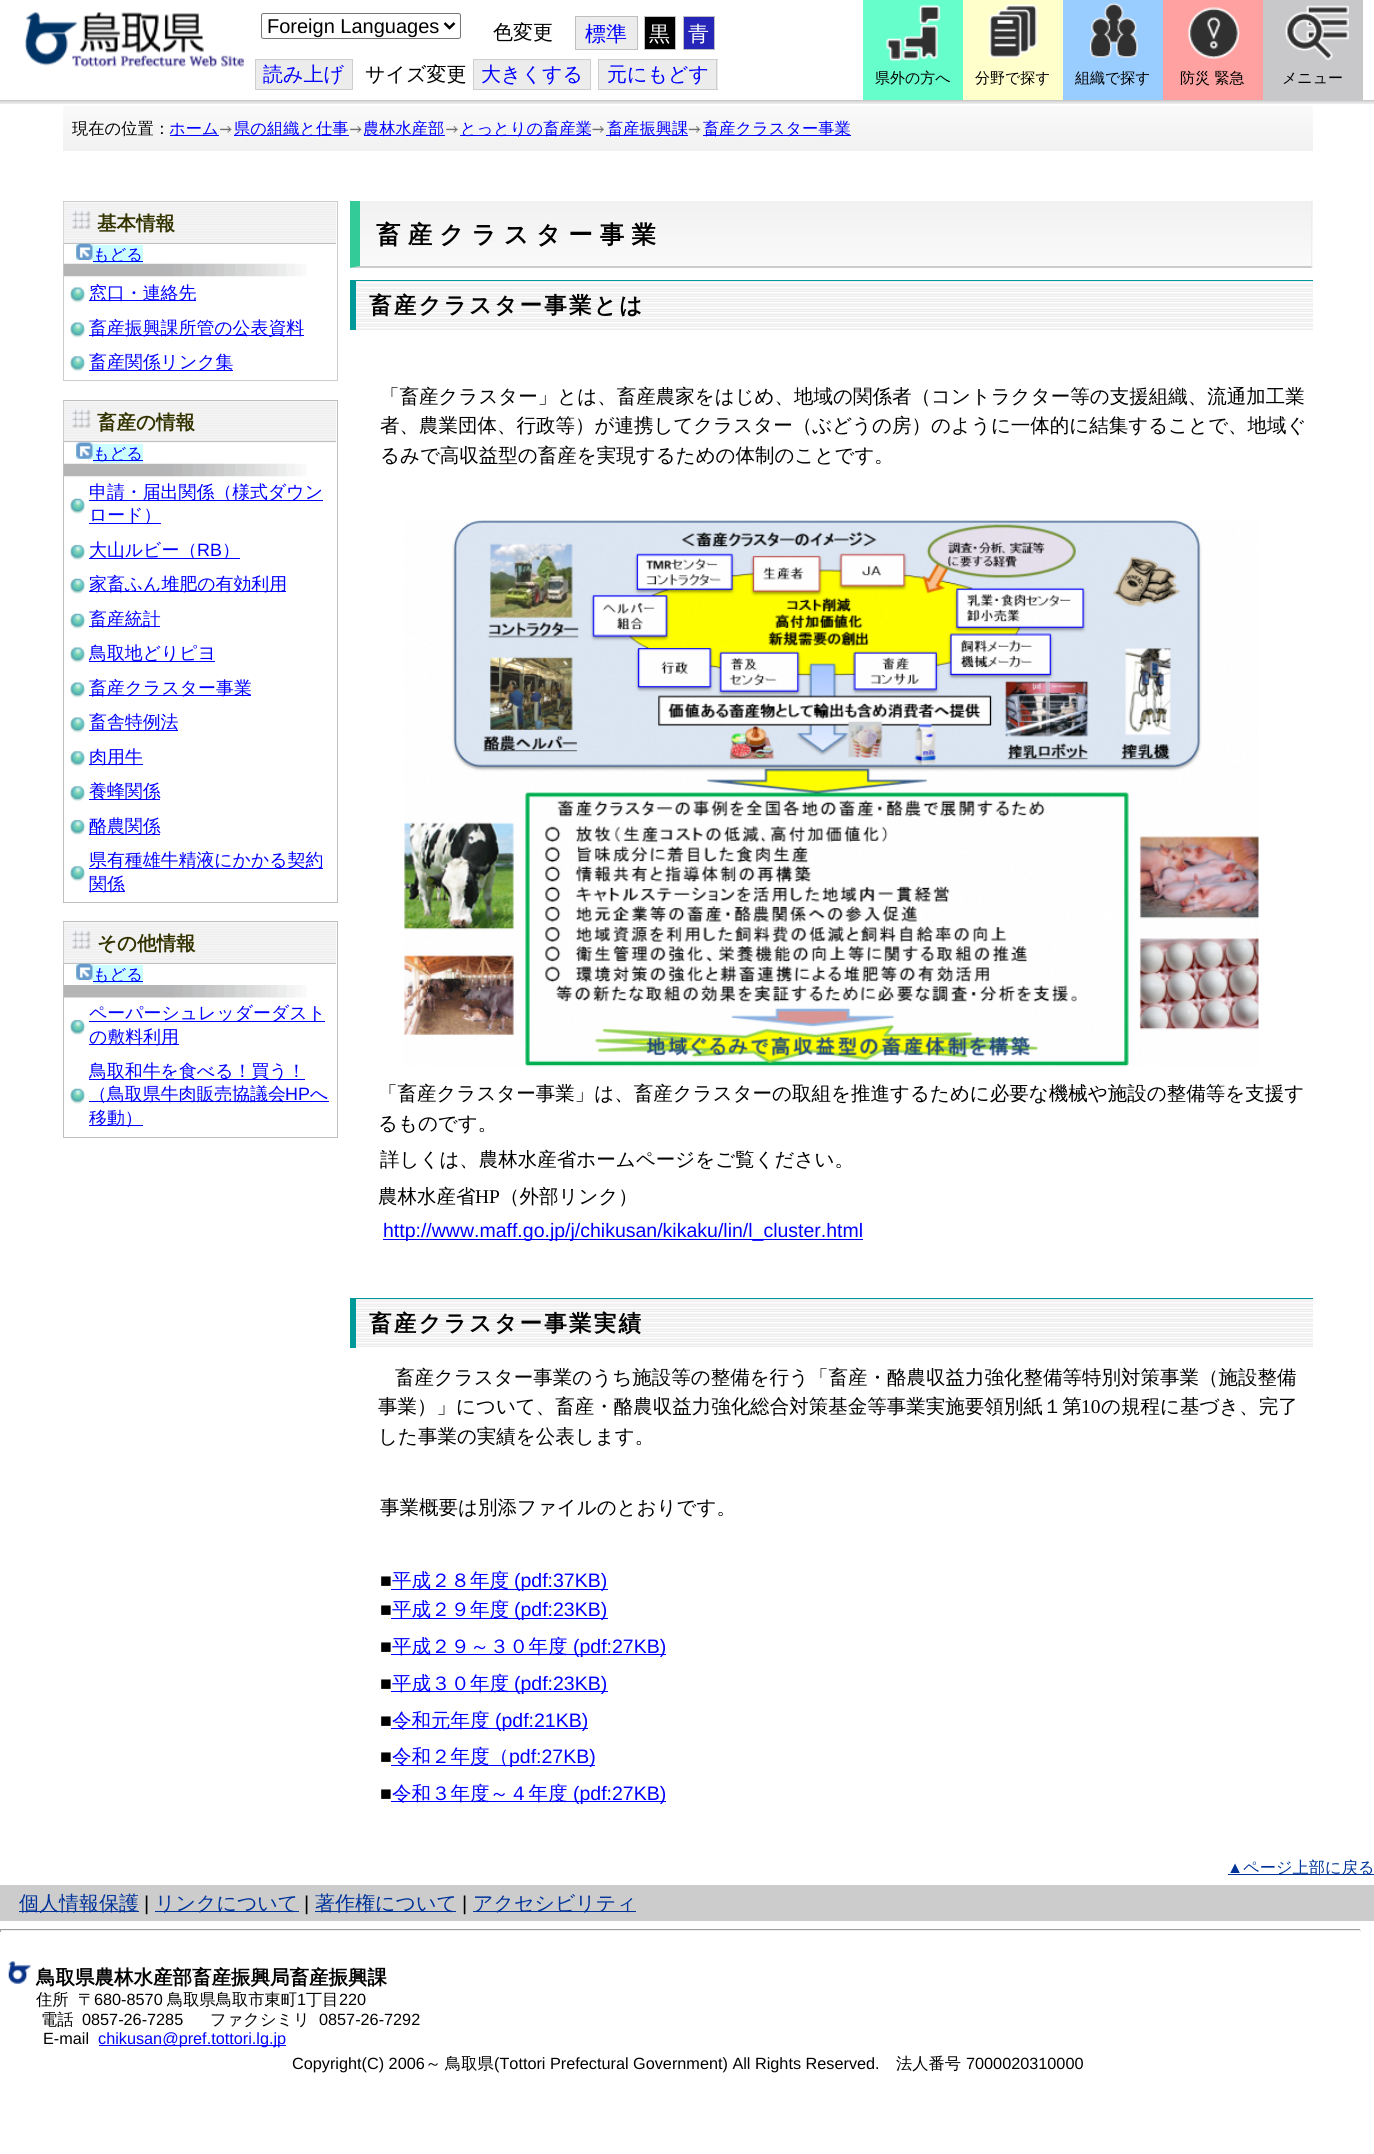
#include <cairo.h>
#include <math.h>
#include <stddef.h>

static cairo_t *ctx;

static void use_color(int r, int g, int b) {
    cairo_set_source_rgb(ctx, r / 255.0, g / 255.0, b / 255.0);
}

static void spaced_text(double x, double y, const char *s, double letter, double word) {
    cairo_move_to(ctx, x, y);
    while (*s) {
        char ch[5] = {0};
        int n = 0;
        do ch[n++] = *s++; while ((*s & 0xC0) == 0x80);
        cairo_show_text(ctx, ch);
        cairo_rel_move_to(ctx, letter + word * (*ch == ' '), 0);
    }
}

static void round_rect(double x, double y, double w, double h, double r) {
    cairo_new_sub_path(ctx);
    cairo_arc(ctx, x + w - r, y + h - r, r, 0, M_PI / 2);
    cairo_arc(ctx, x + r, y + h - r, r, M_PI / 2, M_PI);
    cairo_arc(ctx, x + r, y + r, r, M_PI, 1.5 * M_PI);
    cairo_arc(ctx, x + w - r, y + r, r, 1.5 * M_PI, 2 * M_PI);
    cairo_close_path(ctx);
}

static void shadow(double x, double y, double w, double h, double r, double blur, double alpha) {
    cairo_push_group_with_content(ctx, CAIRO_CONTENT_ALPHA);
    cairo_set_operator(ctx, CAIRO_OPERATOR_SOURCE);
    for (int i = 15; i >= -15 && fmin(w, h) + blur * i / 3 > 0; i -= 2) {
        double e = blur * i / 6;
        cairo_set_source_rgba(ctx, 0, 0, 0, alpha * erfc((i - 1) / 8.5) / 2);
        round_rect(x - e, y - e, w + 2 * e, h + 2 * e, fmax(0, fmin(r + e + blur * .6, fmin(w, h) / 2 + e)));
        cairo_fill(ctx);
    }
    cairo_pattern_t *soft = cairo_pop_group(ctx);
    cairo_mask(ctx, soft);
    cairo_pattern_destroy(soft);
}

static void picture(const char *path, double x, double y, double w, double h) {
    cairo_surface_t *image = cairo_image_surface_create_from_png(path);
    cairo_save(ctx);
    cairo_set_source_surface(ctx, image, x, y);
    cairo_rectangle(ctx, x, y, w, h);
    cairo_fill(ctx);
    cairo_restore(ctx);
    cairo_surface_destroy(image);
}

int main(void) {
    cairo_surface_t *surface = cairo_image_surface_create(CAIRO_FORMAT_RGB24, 1374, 2154);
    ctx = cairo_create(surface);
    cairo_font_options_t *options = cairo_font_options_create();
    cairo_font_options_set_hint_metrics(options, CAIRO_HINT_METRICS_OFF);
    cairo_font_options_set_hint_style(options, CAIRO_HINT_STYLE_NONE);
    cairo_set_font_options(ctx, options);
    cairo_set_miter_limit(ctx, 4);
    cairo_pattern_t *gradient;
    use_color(255, 255, 255);
    cairo_paint(ctx);
    gradient = cairo_pattern_create_linear(688, 106, 688, 151);
    cairo_pattern_add_color_stop_rgba(gradient, 0, 0.98, 0.98, 0.98, 1);
    cairo_pattern_add_color_stop_rgba(gradient, 1, 0.945, 0.945, 0.945, 1);
    cairo_set_source(ctx, gradient);
    cairo_pattern_destroy(gradient);
    cairo_rectangle(ctx, 63, 106, 1250, 45);
    cairo_fill(ctx);
    cairo_save(ctx);
    cairo_rectangle(ctx, 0, 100, 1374, 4);
    cairo_clip(ctx);
    use_color(0, 0, 0);
    shadow(-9, 1, 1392, 100, 0, 3, 0.1);
    shadow(-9, 1, 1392, 100, 0, 3, 0.1);
    shadow(-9, 1, 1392, 100, 0, 3, 0.1);
    shadow(-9, 1, 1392, 100, 0, 3, 0.1);
    cairo_restore(ctx);
    picture("img1.png", 25, 12, 219, 55);
    round_rect(261.5, 13.5, 199, 25, 2);
    use_color(118, 118, 118);
    cairo_set_line_width(ctx, 1);
    cairo_stroke(ctx);
    cairo_new_path(ctx);
    cairo_move_to(ctx, 444.5, 23);
    cairo_line_to(ctx, 449.5, 28);
    cairo_line_to(ctx, 454.5, 23);
    use_color(0, 0, 0);
    cairo_set_line_width(ctx, 2.5);
    cairo_stroke(ctx);
    cairo_select_font_face(ctx, "Liberation Sans", CAIRO_FONT_SLANT_NORMAL, CAIRO_FONT_WEIGHT_NORMAL);
    cairo_set_font_size(ctx, 20);
    cairo_move_to(ctx, 267, 33);
    cairo_show_text(ctx, "Foreign Languages");
    cairo_select_font_face(ctx, "WenQuanYi Zen Hei Medium", CAIRO_FONT_SLANT_NORMAL, CAIRO_FONT_WEIGHT_NORMAL);
    cairo_move_to(ctx, 493, 39);
    cairo_show_text(ctx, "色変更");
    use_color(236, 236, 236);
    cairo_rectangle(ctx, 575.5, 16.5, 62, 33);
    cairo_fill_preserve(ctx);
    use_color(191, 191, 191);
    cairo_set_line_width(ctx, 1);
    cairo_stroke(ctx);
    cairo_set_font_size(ctx, 21);
    use_color(0, 0, 255);
    cairo_move_to(ctx, 585, 41);
    cairo_show_text(ctx, "標準");
    use_color(0, 0, 0);
    cairo_rectangle(ctx, 644.5, 16.5, 31, 33);
    cairo_fill_preserve(ctx);
    use_color(191, 191, 191);
    cairo_stroke(ctx);
    use_color(255, 255, 255);
    cairo_move_to(ctx, 649, 41);
    cairo_show_text(ctx, "黒");
    use_color(37, 37, 184);
    cairo_rectangle(ctx, 683.5, 16.5, 31, 33);
    cairo_fill_preserve(ctx);
    use_color(191, 191, 191);
    cairo_stroke(ctx);
    use_color(255, 255, 255);
    cairo_move_to(ctx, 688, 41);
    cairo_show_text(ctx, "青");
    use_color(236, 236, 236);
    cairo_rectangle(ctx, 255.5, 59.5, 97, 30);
    cairo_fill_preserve(ctx);
    use_color(206, 206, 206);
    cairo_stroke(ctx);
    cairo_set_font_size(ctx, 20);
    use_color(0, 0, 255);
    cairo_move_to(ctx, 263, 81);
    cairo_show_text(ctx, "読み上げ");
    use_color(0, 0, 0);
    cairo_move_to(ctx, 365, 81);
    cairo_show_text(ctx, "サイズ変更");
    use_color(236, 236, 236);
    cairo_rectangle(ctx, 474, 60, 116, 29);
    cairo_fill(ctx);
    use_color(0, 0, 255);
    cairo_move_to(ctx, 481, 81);
    cairo_show_text(ctx, "大きくする");
    use_color(206, 206, 206);
    cairo_rectangle(ctx, 473, 59, 118, 1);
    cairo_fill(ctx);
    cairo_rectangle(ctx, 473, 89, 28, 1);
    cairo_fill(ctx);
    cairo_rectangle(ctx, 473, 59, 1, 31);
    cairo_fill(ctx);
    cairo_rectangle(ctx, 590, 59, 1, 31);
    cairo_fill(ctx);
    cairo_rectangle(ctx, 501, 89, 90, 1);
    cairo_fill(ctx);
    use_color(236, 236, 236);
    cairo_rectangle(ctx, 599, 60, 119, 29);
    cairo_fill(ctx);
    use_color(0, 0, 255);
    cairo_move_to(ctx, 607, 81);
    cairo_show_text(ctx, "元にもどす");
    use_color(206, 206, 206);
    cairo_rectangle(ctx, 598, 59, 120, 1);
    cairo_fill(ctx);
    cairo_rectangle(ctx, 598, 89, 28, 1);
    cairo_fill(ctx);
    cairo_rectangle(ctx, 598, 59, 1, 31);
    cairo_fill(ctx);
    cairo_rectangle(ctx, 716, 59, 1, 31);
    cairo_fill(ctx);
    cairo_rectangle(ctx, 626, 89, 92, 1);
    cairo_fill(ctx);
    use_color(102, 255, 204);
    cairo_rectangle(ctx, 863, 0, 100, 100);
    cairo_fill(ctx);
    picture("img2.png", 886, 4, 55, 58);
    cairo_set_font_size(ctx, 15);
    use_color(0, 0, 0);
    cairo_move_to(ctx, 875, 83);
    cairo_show_text(ctx, "県外の方へ");
    use_color(255, 255, 204);
    cairo_rectangle(ctx, 963, 0, 100, 100);
    cairo_fill(ctx);
    picture("img3.png", 988, 4, 50, 55);
    use_color(0, 0, 0);
    cairo_move_to(ctx, 975, 83);
    cairo_show_text(ctx, "分野で探す");
    use_color(153, 204, 255);
    cairo_rectangle(ctx, 1063, 0, 100, 100);
    cairo_fill(ctx);
    picture("img4.png", 1089, 2, 50, 56);
    use_color(0, 0, 0);
    cairo_move_to(ctx, 1075, 83);
    cairo_show_text(ctx, "組織で探す");
    use_color(255, 161, 161);
    cairo_rectangle(ctx, 1163, 0, 100, 100);
    cairo_fill(ctx);
    picture("img5.png", 1187, 7, 53, 52);
    use_color(0, 0, 0);
    cairo_move_to(ctx, 1180, 83);
    cairo_show_text(ctx, "防災 緊急");
    use_color(200, 200, 203);
    cairo_rectangle(ctx, 1263, 0, 100, 100);
    cairo_fill(ctx);
    picture("img6.png", 1285, 5, 64, 56);
    use_color(0, 0, 0);
    cairo_move_to(ctx, 1282, 83);
    cairo_show_text(ctx, "メニュー");
    cairo_set_font_size(ctx, 16.25);
    cairo_move_to(ctx, 72, 134);
    cairo_show_text(ctx, "現在の位置：");
    use_color(0, 0, 255);
    cairo_rectangle(ctx, 170, 135, 49, 1);
    cairo_fill(ctx);
    cairo_move_to(ctx, 169, 134);
    cairo_show_text(ctx, "ホーム");
    picture("img7.png", 219, 126, 13, 7);
    cairo_rectangle(ctx, 234, 135, 115, 1);
    cairo_fill(ctx);
    cairo_move_to(ctx, 234, 134);
    cairo_show_text(ctx, "県の組織と仕事");
    picture("img8.png", 349, 126, 13, 7);
    cairo_rectangle(ctx, 364, 135, 81, 1);
    cairo_fill(ctx);
    cairo_move_to(ctx, 363, 134);
    cairo_show_text(ctx, "農林水産部");
    picture("img9.png", 446, 126, 12, 7);
    cairo_rectangle(ctx, 460, 135, 131, 1);
    cairo_fill(ctx);
    cairo_move_to(ctx, 460, 134);
    cairo_show_text(ctx, "とっとりの畜産業");
    picture("img10.png", 592, 126, 12, 7);
    cairo_rectangle(ctx, 606, 135, 82, 1);
    cairo_fill(ctx);
    cairo_move_to(ctx, 607, 134);
    cairo_show_text(ctx, "畜産振興課");
    picture("img11.png", 688, 126, 13, 7);
    cairo_rectangle(ctx, 703, 135, 148, 1);
    cairo_fill(ctx);
    cairo_move_to(ctx, 703, 134);
    cairo_show_text(ctx, "畜産クラスター事業");
    cairo_rectangle(ctx, 63.5, 201.5, 274, 179);
    use_color(204, 204, 204);
    cairo_stroke(ctx);
    picture("img12.png", 63, 202, 274, 42);
    use_color(191, 191, 191);
    cairo_rectangle(ctx, 64, 243, 272, 1);
    cairo_fill(ctx);
    picture("img13.png", 70, 209, 21, 21);
    cairo_select_font_face(ctx, "WenQuanYi Zen Hei", CAIRO_FONT_SLANT_NORMAL, CAIRO_FONT_WEIGHT_BOLD);
    cairo_set_font_size(ctx, 19.5);
    use_color(51, 51, 0);
    cairo_move_to(ctx, 97, 230);
    cairo_show_text(ctx, "基本情報");
    use_color(204, 255, 255);
    cairo_rectangle(ctx, 76, 244, 17, 16);
    cairo_fill(ctx);
    picture("img14.png", 76, 243, 17, 17);
    picture("img15.png", 63, 263, 244, 14);
    cairo_rectangle(ctx, 93, 245, 50, 19);
    cairo_fill(ctx);
    use_color(0, 0, 255);
    cairo_rectangle(ctx, 93, 261, 50, 1);
    cairo_fill(ctx);
    cairo_select_font_face(ctx, "WenQuanYi Zen Hei Medium", CAIRO_FONT_SLANT_NORMAL, CAIRO_FONT_WEIGHT_NORMAL);
    cairo_set_font_size(ctx, 16.25);
    cairo_move_to(ctx, 93, 260);
    cairo_show_text(ctx, "もどる");
    picture("img16.png", 70, 287, 16, 16);
    cairo_rectangle(ctx, 89, 300, 107, 1);
    cairo_fill(ctx);
    cairo_set_font_size(ctx, 17.9);
    cairo_move_to(ctx, 89, 299);
    cairo_show_text(ctx, "窓口・連絡先");
    picture("img17.png", 70, 322, 16, 16);
    cairo_rectangle(ctx, 89, 335, 215, 1);
    cairo_fill(ctx);
    cairo_move_to(ctx, 89, 334);
    cairo_show_text(ctx, "畜産振興課所管の公表資料");
    picture("img18.png", 70, 356, 16, 16);
    cairo_rectangle(ctx, 89, 370, 144, 1);
    cairo_fill(ctx);
    cairo_move_to(ctx, 89, 368);
    cairo_show_text(ctx, "畜産関係リンク集");
    cairo_rectangle(ctx, 63.5, 400.5, 274, 502);
    use_color(191, 191, 191);
    cairo_stroke(ctx);
    picture("img19.png", 63, 401, 274, 42);
    cairo_rectangle(ctx, 64, 441, 272, 1);
    cairo_fill(ctx);
    picture("img20.png", 70, 408, 21, 21);
    cairo_select_font_face(ctx, "WenQuanYi Zen Hei", CAIRO_FONT_SLANT_NORMAL, CAIRO_FONT_WEIGHT_BOLD);
    cairo_set_font_size(ctx, 19.5);
    use_color(51, 51, 0);
    cairo_move_to(ctx, 97, 429);
    cairo_show_text(ctx, "畜産の情報");
    use_color(204, 255, 255);
    cairo_rectangle(ctx, 76, 443, 17, 16);
    cairo_fill(ctx);
    picture("img21.png", 76, 442, 17, 17);
    cairo_rectangle(ctx, 93, 444, 50, 19);
    cairo_fill(ctx);
    use_color(0, 0, 255);
    cairo_rectangle(ctx, 93, 460, 50, 1);
    cairo_fill(ctx);
    cairo_select_font_face(ctx, "WenQuanYi Zen Hei Medium", CAIRO_FONT_SLANT_NORMAL, CAIRO_FONT_WEIGHT_NORMAL);
    cairo_set_font_size(ctx, 16.25);
    cairo_move_to(ctx, 93, 459);
    cairo_show_text(ctx, "もどる");
    picture("img22.png", 64, 463, 243, 14);
    picture("img23.png", 70, 498, 16, 16);
    cairo_rectangle(ctx, 89, 500, 234, 1);
    cairo_fill(ctx);
    cairo_set_font_size(ctx, 17.9);
    cairo_move_to(ctx, 89, 498);
    cairo_show_text(ctx, "申請・届出関係（様式ダウン");
    cairo_rectangle(ctx, 89, 523, 72, 1);
    cairo_fill(ctx);
    cairo_move_to(ctx, 89, 521);
    cairo_show_text(ctx, "ロード）");
    picture("img24.png", 70, 544, 16, 16);
    cairo_rectangle(ctx, 89, 558, 151, 1);
    cairo_fill(ctx);
    cairo_move_to(ctx, 89, 556);
    cairo_show_text(ctx, "大山ルビー（");
    cairo_select_font_face(ctx, "Liberation Sans", CAIRO_FONT_SLANT_NORMAL, CAIRO_FONT_WEIGHT_NORMAL);
    cairo_move_to(ctx, 197, 556);
    cairo_show_text(ctx, "RB");
    cairo_select_font_face(ctx, "WenQuanYi Zen Hei Medium", CAIRO_FONT_SLANT_NORMAL, CAIRO_FONT_WEIGHT_NORMAL);
    cairo_move_to(ctx, 222, 556);
    cairo_show_text(ctx, "）");
    picture("img25.png", 70, 578, 16, 16);
    cairo_rectangle(ctx, 89, 591, 197, 1);
    cairo_fill(ctx);
    cairo_move_to(ctx, 89, 590);
    cairo_show_text(ctx, "家畜ふん堆肥の有効利用");
    picture("img23.png", 70, 613, 16, 16);
    cairo_rectangle(ctx, 89, 626, 71, 1);
    cairo_fill(ctx);
    cairo_move_to(ctx, 89, 625);
    cairo_show_text(ctx, "畜産統計");
    picture("img17.png", 70, 647, 16, 16);
    cairo_rectangle(ctx, 89, 661, 126, 1);
    cairo_fill(ctx);
    cairo_move_to(ctx, 89, 659);
    cairo_show_text(ctx, "鳥取地どりピヨ");
    picture("img17.png", 70, 682, 16, 16);
    cairo_rectangle(ctx, 89, 695, 162, 1);
    cairo_fill(ctx);
    cairo_move_to(ctx, 89, 694);
    cairo_show_text(ctx, "畜産クラスター事業");
    picture("img17.png", 70, 717, 16, 16);
    cairo_rectangle(ctx, 89, 730, 89, 1);
    cairo_fill(ctx);
    cairo_move_to(ctx, 89, 728);
    cairo_show_text(ctx, "畜舎特例法");
    picture("img18.png", 70, 751, 16, 16);
    cairo_rectangle(ctx, 89, 764, 54, 1);
    cairo_fill(ctx);
    cairo_move_to(ctx, 89, 763);
    cairo_show_text(ctx, "肉用牛");
    picture("img18.png", 70, 786, 16, 16);
    cairo_rectangle(ctx, 89, 799, 71, 1);
    cairo_fill(ctx);
    cairo_move_to(ctx, 89, 797);
    cairo_show_text(ctx, "養蜂関係");
    picture("img24.png", 70, 819, 16, 16);
    cairo_rectangle(ctx, 89, 834, 71, 1);
    cairo_fill(ctx);
    cairo_move_to(ctx, 89, 832);
    cairo_show_text(ctx, "酪農関係");
    picture("img18.png", 70, 866, 16, 16);
    cairo_rectangle(ctx, 89, 868, 234, 1);
    cairo_fill(ctx);
    cairo_move_to(ctx, 89, 866);
    cairo_show_text(ctx, "県有種雄牛精液にかかる契約");
    cairo_rectangle(ctx, 89, 891, 36, 1);
    cairo_fill(ctx);
    cairo_move_to(ctx, 89, 890);
    cairo_show_text(ctx, "関係");
    cairo_rectangle(ctx, 63.5, 921.5, 274, 216);
    use_color(191, 191, 191);
    cairo_stroke(ctx);
    picture("img26.png", 63, 922, 274, 42);
    cairo_rectangle(ctx, 64, 963, 272, 1);
    cairo_fill(ctx);
    picture("img13.png", 70, 929, 21, 21);
    cairo_select_font_face(ctx, "WenQuanYi Zen Hei", CAIRO_FONT_SLANT_NORMAL, CAIRO_FONT_WEIGHT_BOLD);
    cairo_set_font_size(ctx, 19.5);
    use_color(51, 51, 0);
    cairo_move_to(ctx, 97, 950);
    cairo_show_text(ctx, "その他情報");
    use_color(204, 255, 255);
    cairo_rectangle(ctx, 76, 964, 17, 16);
    cairo_fill(ctx);
    picture("img14.png", 76, 963, 17, 17);
    cairo_rectangle(ctx, 93, 965, 50, 19);
    cairo_fill(ctx);
    use_color(0, 0, 255);
    cairo_rectangle(ctx, 93, 981, 50, 1);
    cairo_fill(ctx);
    cairo_select_font_face(ctx, "WenQuanYi Zen Hei Medium", CAIRO_FONT_SLANT_NORMAL, CAIRO_FONT_WEIGHT_NORMAL);
    cairo_set_font_size(ctx, 16.25);
    cairo_move_to(ctx, 93, 980);
    cairo_show_text(ctx, "もどる");
    picture("img27.png", 64, 985, 243, 13);
    picture("img24.png", 70, 1019, 16, 16);
    cairo_rectangle(ctx, 89, 1021, 236, 1);
    cairo_fill(ctx);
    cairo_set_font_size(ctx, 17.9);
    cairo_move_to(ctx, 89, 1019);
    cairo_show_text(ctx, "ペーパーシュレッダーダスト");
    cairo_rectangle(ctx, 89, 1044, 90, 1);
    cairo_fill(ctx);
    cairo_move_to(ctx, 89, 1043);
    cairo_show_text(ctx, "の敷料利用");
    picture("img23.png", 70, 1088, 16, 16);
    cairo_rectangle(ctx, 89, 1079, 216, 1);
    cairo_fill(ctx);
    cairo_move_to(ctx, 89, 1077);
    cairo_show_text(ctx, "鳥取和牛を食べる！買う！");
    cairo_rectangle(ctx, 89, 1101, 240, 1);
    cairo_fill(ctx);
    cairo_move_to(ctx, 89, 1100);
    cairo_show_text(ctx, "（鳥取県牛肉販売協議会");
    cairo_select_font_face(ctx, "Liberation Sans", CAIRO_FONT_SLANT_NORMAL, CAIRO_FONT_WEIGHT_NORMAL);
    cairo_move_to(ctx, 285, 1100);
    cairo_show_text(ctx, "HP");
    cairo_select_font_face(ctx, "WenQuanYi Zen Hei Medium", CAIRO_FONT_SLANT_NORMAL, CAIRO_FONT_WEIGHT_NORMAL);
    cairo_move_to(ctx, 310, 1100);
    cairo_show_text(ctx, "へ");
    cairo_rectangle(ctx, 89, 1125, 54, 1);
    cairo_fill(ctx);
    cairo_move_to(ctx, 89, 1124);
    cairo_show_text(ctx, "移動）");
    gradient = cairo_pattern_create_linear(836, 201, 836, 266);
    cairo_pattern_add_color_stop_rgba(gradient, 0, 0.945, 0.945, 0.945, 1);
    cairo_pattern_add_color_stop_rgba(gradient, 1, 0.98, 0.98, 0.98, 1);
    cairo_set_source(ctx, gradient);
    cairo_pattern_destroy(gradient);
    cairo_rectangle(ctx, 360, 201, 953, 65);
    cairo_fill(ctx);
    gradient = cairo_pattern_create_linear(836, 266, 836, 331);
    cairo_pattern_add_color_stop_rgba(gradient, 0, 0.945, 0.945, 0.945, 1);
    cairo_pattern_add_color_stop_rgba(gradient, 1, 0.98, 0.98, 0.98, 1);
    cairo_set_source(ctx, gradient);
    cairo_pattern_destroy(gradient);
    cairo_rectangle(ctx, 350, 266, 963, 2);
    cairo_fill(ctx);
    use_color(238, 238, 238);
    cairo_rectangle(ctx, 1311, 201, 1, 67);
    cairo_fill(ctx);
    use_color(204, 204, 204);
    cairo_new_path(ctx);
    cairo_move_to(ctx, 1312, 268);
    cairo_line_to(ctx, 350, 268);
    cairo_line_to(ctx, 360, 266);
    cairo_line_to(ctx, 1311, 266);
    cairo_close_path(ctx);
    cairo_fill(ctx);
    use_color(51, 204, 153);
    cairo_new_path(ctx);
    cairo_move_to(ctx, 350, 268);
    cairo_line_to(ctx, 350, 201);
    cairo_line_to(ctx, 360, 201);
    cairo_line_to(ctx, 360, 266);
    cairo_close_path(ctx);
    cairo_fill(ctx);
    cairo_select_font_face(ctx, "WenQuanYi Zen Hei", CAIRO_FONT_SLANT_NORMAL, CAIRO_FONT_WEIGHT_BOLD);
    cairo_set_font_size(ctx, 24.4);
    use_color(0, 0, 0);
    spaced_text(376, 243, "畜産クラスター事業", 7.25, 0);
    picture("img28.png", 356, 281, 957, 49);
    use_color(0, 153, 153);
    cairo_rectangle(ctx, 350, 280, 963, 1);
    cairo_fill(ctx);
    cairo_rectangle(ctx, 350, 280, 6, 50);
    cairo_fill(ctx);
    cairo_set_font_size(ctx, 22.5);
    use_color(0, 0, 0);
    spaced_text(369, 313, "畜産クラスター事業とは", 2.25, 0);
    cairo_select_font_face(ctx, "WenQuanYi Zen Hei Medium", CAIRO_FONT_SLANT_NORMAL, CAIRO_FONT_WEIGHT_NORMAL);
    cairo_set_font_size(ctx, 19.5);
    cairo_move_to(ctx, 380, 403);
    cairo_show_text(ctx, "「畜産クラスター」とは、畜産農家をはじめ、地域の関係者（コントラクター等の支援組織、流通加工業");
    cairo_move_to(ctx, 380, 432);
    cairo_show_text(ctx, "者、農業団体、行政等）が連携してクラスター（ぶどうの房）のように一体的に結集することで、地域ぐ");
    cairo_move_to(ctx, 380, 462);
    cairo_show_text(ctx, "るみで高収益型の畜産を実現するための体制のことです。");
    picture("img29.png", 404, 520, 855, 547);
    cairo_move_to(ctx, 378, 1100);
    cairo_show_text(ctx, "「畜産クラスター事業」は、畜産クラスターの取組を推進するために必要な機械や施設の整備等を支援す");
    cairo_move_to(ctx, 378, 1130);
    cairo_show_text(ctx, "るものです。");
    cairo_move_to(ctx, 380, 1166);
    cairo_show_text(ctx, "詳しくは、農林水産省ホームページをご覧ください。");
    cairo_move_to(ctx, 378, 1203);
    cairo_show_text(ctx, "農林水産省");
    cairo_select_font_face(ctx, "Liberation Serif", CAIRO_FONT_SLANT_NORMAL, CAIRO_FONT_WEIGHT_NORMAL);
    cairo_move_to(ctx, 475, 1203);
    cairo_show_text(ctx, "HP");
    cairo_select_font_face(ctx, "WenQuanYi Zen Hei Medium", CAIRO_FONT_SLANT_NORMAL, CAIRO_FONT_WEIGHT_NORMAL);
    cairo_move_to(ctx, 500, 1203);
    cairo_show_text(ctx, "（外部リンク）");
    use_color(0, 0, 255);
    cairo_rectangle(ctx, 383, 1239, 480, 1);
    cairo_fill(ctx);
    cairo_select_font_face(ctx, "Liberation Sans", CAIRO_FONT_SLANT_NORMAL, CAIRO_FONT_WEIGHT_NORMAL);
    cairo_move_to(ctx, 383, 1237);
    cairo_show_text(ctx, "http://www.maff.go.jp/j/chikusan/kikaku/lin/l_cluster.html");
    picture("img30.png", 356, 1299, 957, 48);
    use_color(0, 153, 153);
    cairo_rectangle(ctx, 350, 1298, 963, 1);
    cairo_fill(ctx);
    cairo_rectangle(ctx, 350, 1298, 6, 50);
    cairo_fill(ctx);
    cairo_select_font_face(ctx, "WenQuanYi Zen Hei", CAIRO_FONT_SLANT_NORMAL, CAIRO_FONT_WEIGHT_BOLD);
    cairo_set_font_size(ctx, 22.5);
    use_color(0, 0, 0);
    spaced_text(369, 1331, "畜産クラスター事業実績", 2.25, 0);
    cairo_select_font_face(ctx, "WenQuanYi Zen Hei Medium", CAIRO_FONT_SLANT_NORMAL, CAIRO_FONT_WEIGHT_NORMAL);
    cairo_set_font_size(ctx, 19.5);
    cairo_move_to(ctx, 395, 1384);
    cairo_show_text(ctx, "畜産クラスター事業のうち施設等の整備を行う「畜産・酪農収益力強化整備等特別対策事業（施設整備");
    cairo_move_to(ctx, 378, 1413);
    cairo_show_text(ctx, "事業）」について、畜産・酪農収益力強化総合対策基金等事業実施要領別紙１第");
    cairo_select_font_face(ctx, "Liberation Serif", CAIRO_FONT_SLANT_NORMAL, CAIRO_FONT_WEIGHT_NORMAL);
    cairo_move_to(ctx, 1081, 1413);
    cairo_show_text(ctx, "10");
    cairo_select_font_face(ctx, "WenQuanYi Zen Hei Medium", CAIRO_FONT_SLANT_NORMAL, CAIRO_FONT_WEIGHT_NORMAL);
    cairo_move_to(ctx, 1101, 1413);
    cairo_show_text(ctx, "の規程に基づき、完了");
    cairo_move_to(ctx, 378, 1443);
    cairo_show_text(ctx, "した事業の実績を公表します。");
    cairo_move_to(ctx, 380, 1514);
    cairo_show_text(ctx, "事業概要は別添ファイルのとおりです。");
    cairo_select_font_face(ctx, "Liberation Sans", CAIRO_FONT_SLANT_NORMAL, CAIRO_FONT_WEIGHT_NORMAL);
    cairo_move_to(ctx, 380, 1587);
    cairo_show_text(ctx, "■");
    use_color(0, 0, 255);
    cairo_rectangle(ctx, 391, 1589, 217, 1);
    cairo_fill(ctx);
    cairo_select_font_face(ctx, "WenQuanYi Zen Hei Medium", CAIRO_FONT_SLANT_NORMAL, CAIRO_FONT_WEIGHT_NORMAL);
    cairo_move_to(ctx, 392, 1587);
    cairo_show_text(ctx, "平成２８年度");
    cairo_select_font_face(ctx, "Liberation Sans", CAIRO_FONT_SLANT_NORMAL, CAIRO_FONT_WEIGHT_NORMAL);
    cairo_move_to(ctx, 514, 1587);
    cairo_show_text(ctx, "(pdf:37KB)");
    use_color(0, 0, 0);
    cairo_move_to(ctx, 380, 1616);
    cairo_show_text(ctx, "■");
    use_color(0, 0, 255);
    cairo_rectangle(ctx, 391, 1618, 217, 1);
    cairo_fill(ctx);
    cairo_select_font_face(ctx, "WenQuanYi Zen Hei Medium", CAIRO_FONT_SLANT_NORMAL, CAIRO_FONT_WEIGHT_NORMAL);
    cairo_move_to(ctx, 392, 1616);
    cairo_show_text(ctx, "平成２９年度");
    cairo_select_font_face(ctx, "Liberation Sans", CAIRO_FONT_SLANT_NORMAL, CAIRO_FONT_WEIGHT_NORMAL);
    cairo_move_to(ctx, 514, 1616);
    cairo_show_text(ctx, "(pdf:23KB)");
    use_color(0, 0, 0);
    cairo_move_to(ctx, 380, 1653);
    cairo_show_text(ctx, "■");
    use_color(0, 0, 255);
    cairo_rectangle(ctx, 391, 1654, 275, 1);
    cairo_fill(ctx);
    cairo_select_font_face(ctx, "WenQuanYi Zen Hei Medium", CAIRO_FONT_SLANT_NORMAL, CAIRO_FONT_WEIGHT_NORMAL);
    cairo_move_to(ctx, 392, 1653);
    cairo_show_text(ctx, "平成２９～３０年度");
    cairo_select_font_face(ctx, "Liberation Sans", CAIRO_FONT_SLANT_NORMAL, CAIRO_FONT_WEIGHT_NORMAL);
    cairo_move_to(ctx, 573, 1653);
    cairo_show_text(ctx, "(pdf:27KB)");
    use_color(0, 0, 0);
    cairo_move_to(ctx, 380, 1690);
    cairo_show_text(ctx, "■");
    use_color(0, 0, 255);
    cairo_rectangle(ctx, 391, 1691, 217, 1);
    cairo_fill(ctx);
    cairo_select_font_face(ctx, "WenQuanYi Zen Hei Medium", CAIRO_FONT_SLANT_NORMAL, CAIRO_FONT_WEIGHT_NORMAL);
    cairo_move_to(ctx, 392, 1690);
    cairo_show_text(ctx, "平成３０年度");
    cairo_select_font_face(ctx, "Liberation Sans", CAIRO_FONT_SLANT_NORMAL, CAIRO_FONT_WEIGHT_NORMAL);
    cairo_move_to(ctx, 514, 1690);
    cairo_show_text(ctx, "(pdf:23KB)");
    use_color(0, 0, 0);
    cairo_move_to(ctx, 380, 1727);
    cairo_show_text(ctx, "■");
    use_color(0, 0, 255);
    cairo_rectangle(ctx, 391, 1728, 197, 1);
    cairo_fill(ctx);
    cairo_select_font_face(ctx, "WenQuanYi Zen Hei Medium", CAIRO_FONT_SLANT_NORMAL, CAIRO_FONT_WEIGHT_NORMAL);
    cairo_move_to(ctx, 392, 1727);
    cairo_show_text(ctx, "令和元年度");
    cairo_select_font_face(ctx, "Liberation Sans", CAIRO_FONT_SLANT_NORMAL, CAIRO_FONT_WEIGHT_NORMAL);
    cairo_move_to(ctx, 495, 1727);
    cairo_show_text(ctx, "(pdf:21KB)");
    use_color(0, 0, 0);
    cairo_move_to(ctx, 380, 1763);
    cairo_show_text(ctx, "■");
    use_color(0, 0, 255);
    cairo_rectangle(ctx, 391, 1765, 204, 1);
    cairo_fill(ctx);
    cairo_select_font_face(ctx, "WenQuanYi Zen Hei Medium", CAIRO_FONT_SLANT_NORMAL, CAIRO_FONT_WEIGHT_NORMAL);
    cairo_move_to(ctx, 392, 1763);
    cairo_show_text(ctx, "令和２年度（");
    cairo_select_font_face(ctx, "Liberation Sans", CAIRO_FONT_SLANT_NORMAL, CAIRO_FONT_WEIGHT_NORMAL);
    cairo_move_to(ctx, 509, 1763);
    cairo_show_text(ctx, "pdf:27KB)");
    use_color(0, 0, 0);
    cairo_move_to(ctx, 380, 1800);
    cairo_show_text(ctx, "■");
    use_color(0, 0, 255);
    cairo_rectangle(ctx, 391, 1801, 275, 1);
    cairo_fill(ctx);
    cairo_select_font_face(ctx, "WenQuanYi Zen Hei Medium", CAIRO_FONT_SLANT_NORMAL, CAIRO_FONT_WEIGHT_NORMAL);
    cairo_move_to(ctx, 392, 1800);
    cairo_show_text(ctx, "令和３年度～４年度");
    cairo_select_font_face(ctx, "Liberation Sans", CAIRO_FONT_SLANT_NORMAL, CAIRO_FONT_WEIGHT_NORMAL);
    cairo_move_to(ctx, 573, 1800);
    cairo_show_text(ctx, "(pdf:27KB)");
    cairo_set_font_size(ctx, 16.25);
    use_color(0, 51, 153);
    cairo_move_to(ctx, 1227, 1873);
    cairo_show_text(ctx, "▲");
    cairo_rectangle(ctx, 1228, 1874, 146, 1);
    cairo_fill(ctx);
    cairo_select_font_face(ctx, "WenQuanYi Zen Hei Medium", CAIRO_FONT_SLANT_NORMAL, CAIRO_FONT_WEIGHT_NORMAL);
    cairo_move_to(ctx, 1243, 1873);
    cairo_show_text(ctx, "ページ上部に戻る");
    use_color(204, 204, 204);
    cairo_rectangle(ctx, 0, 1885, 1374, 36);
    cairo_fill(ctx);
    use_color(0, 51, 153);
    cairo_rectangle(ctx, 19, 1911, 120, 1);
    cairo_fill(ctx);
    cairo_set_font_size(ctx, 20);
    cairo_move_to(ctx, 19, 1910);
    cairo_show_text(ctx, "個人情報保護");
    cairo_select_font_face(ctx, "Liberation Sans", CAIRO_FONT_SLANT_NORMAL, CAIRO_FONT_WEIGHT_NORMAL);
    use_color(0, 0, 0);
    cairo_move_to(ctx, 144, 1910);
    cairo_show_text(ctx, "|");
    use_color(0, 51, 153);
    cairo_rectangle(ctx, 155, 1911, 144, 1);
    cairo_fill(ctx);
    cairo_select_font_face(ctx, "WenQuanYi Zen Hei Medium", CAIRO_FONT_SLANT_NORMAL, CAIRO_FONT_WEIGHT_NORMAL);
    cairo_move_to(ctx, 155, 1910);
    cairo_show_text(ctx, "リンクについて");
    cairo_select_font_face(ctx, "Liberation Sans", CAIRO_FONT_SLANT_NORMAL, CAIRO_FONT_WEIGHT_NORMAL);
    use_color(0, 0, 0);
    cairo_move_to(ctx, 304, 1910);
    cairo_show_text(ctx, "|");
    use_color(0, 51, 153);
    cairo_rectangle(ctx, 315, 1911, 141, 1);
    cairo_fill(ctx);
    cairo_select_font_face(ctx, "WenQuanYi Zen Hei Medium", CAIRO_FONT_SLANT_NORMAL, CAIRO_FONT_WEIGHT_NORMAL);
    cairo_move_to(ctx, 315, 1910);
    cairo_show_text(ctx, "著作権について");
    cairo_select_font_face(ctx, "Liberation Sans", CAIRO_FONT_SLANT_NORMAL, CAIRO_FONT_WEIGHT_NORMAL);
    use_color(0, 0, 0);
    cairo_move_to(ctx, 462, 1910);
    cairo_show_text(ctx, "|");
    use_color(0, 51, 153);
    cairo_rectangle(ctx, 473, 1911, 163, 1);
    cairo_fill(ctx);
    cairo_select_font_face(ctx, "WenQuanYi Zen Hei Medium", CAIRO_FONT_SLANT_NORMAL, CAIRO_FONT_WEIGHT_NORMAL);
    cairo_move_to(ctx, 473, 1910);
    cairo_show_text(ctx, "アクセシビリティ");
    use_color(159, 159, 159);
    cairo_rectangle(ctx, 0, 1929, 1361, 1);
    cairo_fill(ctx);
    use_color(238, 238, 238);
    cairo_rectangle(ctx, 1360, 1929, 1, 3);
    cairo_fill(ctx);
    cairo_rectangle(ctx, 0, 1930, 1361, 1);
    cairo_fill(ctx);
    use_color(159, 159, 159);
    cairo_rectangle(ctx, 0, 1929, 1, 3);
    cairo_fill(ctx);
    picture("img31.png", 8, 1961, 24, 23);
    cairo_select_font_face(ctx, "WenQuanYi Zen Hei", CAIRO_FONT_SLANT_NORMAL, CAIRO_FONT_WEIGHT_BOLD);
    cairo_set_font_size(ctx, 19.5);
    use_color(0, 0, 0);
    cairo_move_to(ctx, 36, 1984);
    cairo_show_text(ctx, "鳥取県農林水産部畜産振興局畜産振興課");
    cairo_select_font_face(ctx, "WenQuanYi Zen Hei Medium", CAIRO_FONT_SLANT_NORMAL, CAIRO_FONT_WEIGHT_NORMAL);
    cairo_set_font_size(ctx, 16.25);
    cairo_move_to(ctx, 36, 2005);
    cairo_show_text(ctx, "住所");
    cairo_move_to(ctx, 78, 2005);
    cairo_show_text(ctx, "〒");
    cairo_select_font_face(ctx, "Liberation Sans", CAIRO_FONT_SLANT_NORMAL, CAIRO_FONT_WEIGHT_NORMAL);
    cairo_move_to(ctx, 94, 2005);
    cairo_show_text(ctx, "680-8570");
    cairo_select_font_face(ctx, "WenQuanYi Zen Hei Medium", CAIRO_FONT_SLANT_NORMAL, CAIRO_FONT_WEIGHT_NORMAL);
    cairo_move_to(ctx, 167, 2005);
    cairo_show_text(ctx, "鳥取県鳥取市東町");
    cairo_select_font_face(ctx, "Liberation Sans", CAIRO_FONT_SLANT_NORMAL, CAIRO_FONT_WEIGHT_NORMAL);
    cairo_move_to(ctx, 297, 2005);
    cairo_show_text(ctx, "1");
    cairo_select_font_face(ctx, "WenQuanYi Zen Hei Medium", CAIRO_FONT_SLANT_NORMAL, CAIRO_FONT_WEIGHT_NORMAL);
    cairo_move_to(ctx, 306, 2005);
    cairo_show_text(ctx, "丁目");
    cairo_select_font_face(ctx, "Liberation Sans", CAIRO_FONT_SLANT_NORMAL, CAIRO_FONT_WEIGHT_NORMAL);
    cairo_move_to(ctx, 339, 2005);
    cairo_show_text(ctx, "220");
    cairo_select_font_face(ctx, "WenQuanYi Zen Hei Medium", CAIRO_FONT_SLANT_NORMAL, CAIRO_FONT_WEIGHT_NORMAL);
    cairo_move_to(ctx, 41, 2025);
    cairo_show_text(ctx, "電話");
    cairo_select_font_face(ctx, "Liberation Sans", CAIRO_FONT_SLANT_NORMAL, CAIRO_FONT_WEIGHT_NORMAL);
    cairo_move_to(ctx, 82, 2025);
    cairo_show_text(ctx, "0857-26-7285");
    cairo_select_font_face(ctx, "WenQuanYi Zen Hei Medium", CAIRO_FONT_SLANT_NORMAL, CAIRO_FONT_WEIGHT_NORMAL);
    cairo_move_to(ctx, 210, 2025);
    cairo_show_text(ctx, "ファクシミリ");
    cairo_select_font_face(ctx, "Liberation Sans", CAIRO_FONT_SLANT_NORMAL, CAIRO_FONT_WEIGHT_NORMAL);
    cairo_move_to(ctx, 319, 2025);
    cairo_show_text(ctx, "0857-26-7292");
    cairo_move_to(ctx, 43, 2044);
    cairo_show_text(ctx, "E-mail");
    use_color(0, 0, 255);
    cairo_rectangle(ctx, 99, 2045, 187, 1);
    cairo_fill(ctx);
    cairo_move_to(ctx, 98, 2044);
    cairo_show_text(ctx, "chikusan@pref.tottori.lg.jp");
    use_color(0, 0, 0);
    cairo_move_to(ctx, 292, 2069);
    cairo_show_text(ctx, "Copyright(C) 2006");
    cairo_select_font_face(ctx, "WenQuanYi Zen Hei Medium", CAIRO_FONT_SLANT_NORMAL, CAIRO_FONT_WEIGHT_NORMAL);
    cairo_move_to(ctx, 425, 2069);
    cairo_show_text(ctx, "～");
    cairo_move_to(ctx, 445, 2069);
    cairo_show_text(ctx, "鳥取県");
    cairo_select_font_face(ctx, "Liberation Sans", CAIRO_FONT_SLANT_NORMAL, CAIRO_FONT_WEIGHT_NORMAL);
    cairo_move_to(ctx, 494, 2069);
    cairo_show_text(ctx, "(Tottori Prefectural Government) All Rights Reserved.");
    cairo_select_font_face(ctx, "WenQuanYi Zen Hei Medium", CAIRO_FONT_SLANT_NORMAL, CAIRO_FONT_WEIGHT_NORMAL);
    cairo_move_to(ctx, 896, 2069);
    cairo_show_text(ctx, "法人番号");
    cairo_select_font_face(ctx, "Liberation Sans", CAIRO_FONT_SLANT_NORMAL, CAIRO_FONT_WEIGHT_NORMAL);
    cairo_move_to(ctx, 966, 2069);
    cairo_show_text(ctx, "7000020310000");
    cairo_surface_write_to_png(surface, "result.png");
    cairo_font_options_destroy(options);
    cairo_destroy(ctx);
    cairo_surface_destroy(surface);
    return 0;
}
